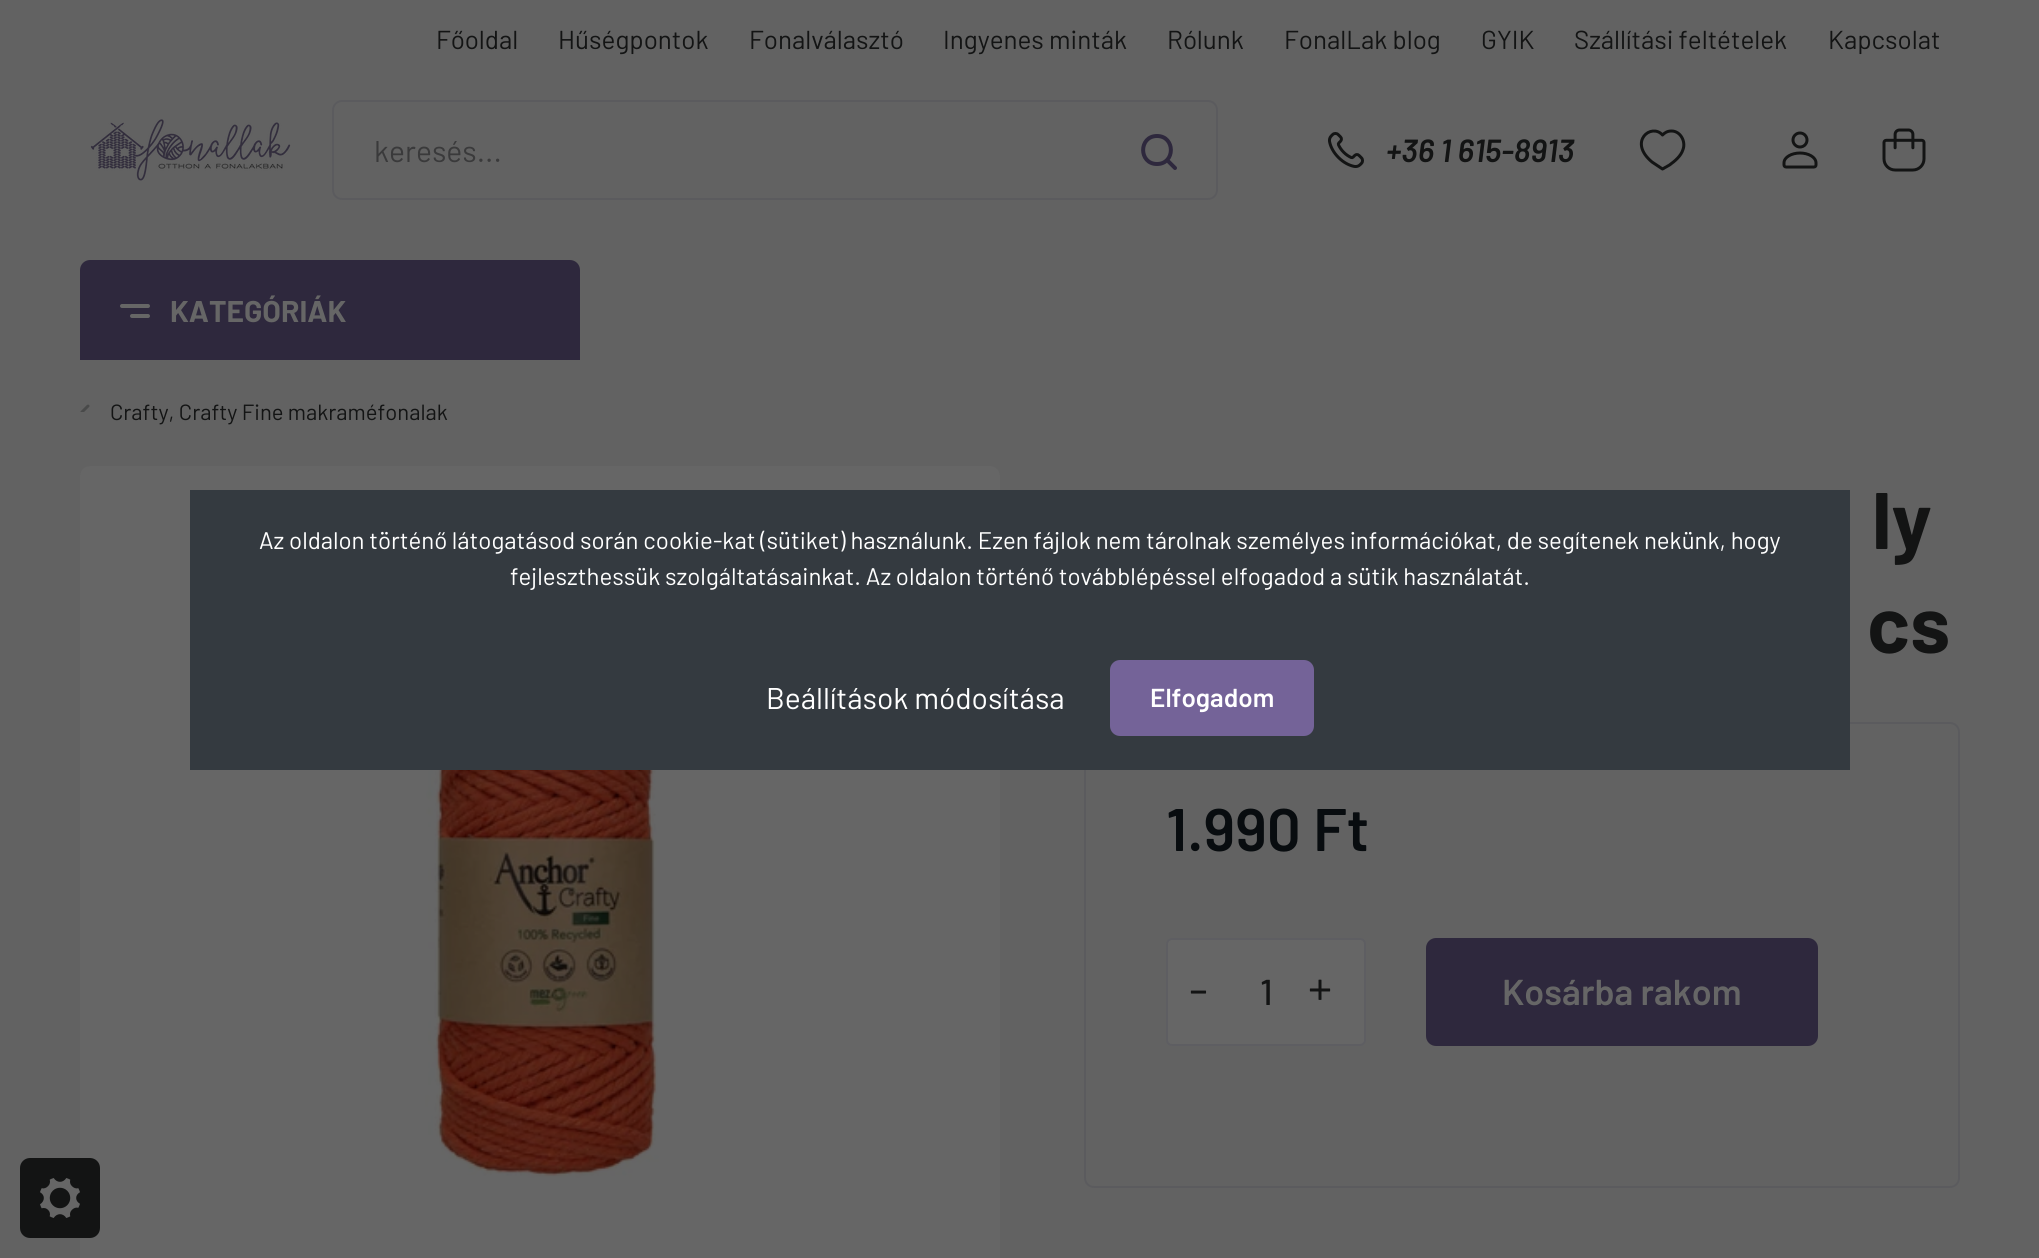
#include <cairo.h>
#include <math.h>
#include <stddef.h>

static cairo_t *ctx;

static void use_color(int r, int g, int b) {
    cairo_set_source_rgb(ctx, r / 255.0, g / 255.0, b / 255.0);
}

static void round_rect(double x, double y, double w, double h, double r) {
    cairo_new_sub_path(ctx);
    cairo_arc(ctx, x + w - r, y + h - r, r, 0, M_PI / 2);
    cairo_arc(ctx, x + r, y + h - r, r, M_PI / 2, M_PI);
    cairo_arc(ctx, x + r, y + r, r, M_PI, 1.5 * M_PI);
    cairo_arc(ctx, x + w - r, y + r, r, 1.5 * M_PI, 2 * M_PI);
    cairo_close_path(ctx);
}

static void picture(const char *path, double x, double y, double w, double h) {
    cairo_surface_t *image = cairo_image_surface_create_from_png(path);
    cairo_save(ctx);
    cairo_set_source_surface(ctx, image, x, y);
    cairo_rectangle(ctx, x, y, w, h);
    cairo_fill(ctx);
    cairo_restore(ctx);
    cairo_surface_destroy(image);
}

int main(void) {
    cairo_surface_t *surface = cairo_image_surface_create(CAIRO_FORMAT_RGB24, 2039, 1258);
    ctx = cairo_create(surface);
    cairo_font_options_t *options = cairo_font_options_create();
    cairo_font_options_set_hint_metrics(options, CAIRO_HINT_METRICS_OFF);
    cairo_font_options_set_hint_style(options, CAIRO_HINT_STYLE_NONE);
    cairo_set_font_options(ctx, options);
    cairo_set_miter_limit(ctx, 4);
    use_color(98, 98, 98);
    cairo_paint(ctx);
    cairo_select_font_face(ctx, "Barlow", CAIRO_FONT_SLANT_NORMAL, CAIRO_FONT_WEIGHT_NORMAL);
    cairo_set_font_size(ctx, 26);
    use_color(19, 20, 20);
    cairo_move_to(ctx, 436, 49);
    cairo_show_text(ctx, "Főoldal");
    cairo_move_to(ctx, 558, 49);
    cairo_show_text(ctx, "Hűségpontok");
    cairo_move_to(ctx, 749, 49);
    cairo_show_text(ctx, "Fonalválasztó");
    cairo_move_to(ctx, 943, 49);
    cairo_show_text(ctx, "Ingyenes minták");
    cairo_move_to(ctx, 1167, 49);
    cairo_show_text(ctx, "Rólunk");
    cairo_move_to(ctx, 1284, 49);
    cairo_show_text(ctx, "FonalLak blog");
    cairo_move_to(ctx, 1481, 49);
    cairo_show_text(ctx, "GYIK");
    cairo_move_to(ctx, 1574, 49);
    cairo_show_text(ctx, "Szállítási feltételek");
    cairo_move_to(ctx, 1828, 49);
    cairo_show_text(ctx, "Kapcsolat");
    picture("img1.png", 90, 119, 201, 62);
    round_rect(333, 101, 884, 98, 9);
    use_color(91, 91, 94);
    cairo_stroke(ctx);
    cairo_set_font_size(ctx, 30);
    use_color(58, 58, 59);
    cairo_move_to(ctx, 374, 162);
    cairo_show_text(ctx, "keresés...");
    cairo_new_path(ctx);
    cairo_move_to(ctx, 1175, 168);
    cairo_line_to(ctx, 1167, 160);
    cairo_move_to(ctx, 1157, 164);
    cairo_curve_to(ctx, 1138.5, 164, 1138.5, 136, 1157, 136);
    cairo_curve_to(ctx, 1175.5, 136, 1175.5, 164, 1157, 164);
    cairo_close_path(ctx);
    use_color(46, 40, 61);
    cairo_set_line_width(ctx, 4);
    cairo_set_line_cap(ctx, CAIRO_LINE_CAP_ROUND);
    cairo_set_line_join(ctx, CAIRO_LINE_JOIN_ROUND);
    cairo_stroke(ctx);
    picture("img2.png", 1328, 132, 36, 36);
    cairo_select_font_face(ctx, "Barlow SemiBold", CAIRO_FONT_SLANT_ITALIC, CAIRO_FONT_WEIGHT_NORMAL);
    cairo_set_font_size(ctx, 32);
    use_color(19, 20, 20);
    cairo_move_to(ctx, 1386, 162);
    cairo_show_text(ctx, "+36 1 615-8913");
    cairo_new_path(ctx);
    cairo_move_to(ctx, 1671.5, 131);
    cairo_curve_to(ctx, 1680.5, 131, 1686, 141.5, 1683, 149.5);
    cairo_curve_to(ctx, 1681, 156, 1675, 161, 1669.5, 165);
    cairo_line_to(ctx, 1662.5, 169);
    cairo_line_to(ctx, 1652, 162);
    cairo_curve_to(ctx, 1627.5, 141.5, 1651.5, 122.5, 1662.5, 135);
    cairo_curve_to(ctx, 1664.5, 133, 1667, 131, 1671.5, 131);
    cairo_close_path(ctx);
    cairo_set_line_width(ctx, 3);
    cairo_stroke(ctx);
    picture("img3.png", 1782, 131, 36, 38);
    picture("img4.png", 1882, 128, 44, 44);
    use_color(46, 40, 61);
    cairo_new_path(ctx);
    cairo_move_to(ctx, 90, 260);
    cairo_line_to(ctx, 570, 260);
    cairo_curve_to(ctx, 575.5, 260, 580, 264.5, 580, 270);
    cairo_line_to(ctx, 580, 360);
    cairo_line_to(ctx, 80, 360);
    cairo_line_to(ctx, 80, 270);
    cairo_curve_to(ctx, 80, 264.5, 84.5, 260, 90, 260);
    cairo_close_path(ctx);
    cairo_fill(ctx);
    use_color(102, 102, 102);
    round_rect(120, 304, 30, 4, 2);
    cairo_fill(ctx);
    round_rect(130, 314, 20, 4, 2);
    cairo_fill(ctx);
    cairo_select_font_face(ctx, "Barlow", CAIRO_FONT_SLANT_NORMAL, CAIRO_FONT_WEIGHT_BOLD);
    cairo_set_font_size(ctx, 30);
    cairo_move_to(ctx, 170, 322);
    cairo_show_text(ctx, "KATEGÓRIÁK");
    picture("img5.png", 80, 404, 10, 8);
    cairo_select_font_face(ctx, "Barlow", CAIRO_FONT_SLANT_NORMAL, CAIRO_FONT_WEIGHT_NORMAL);
    cairo_set_font_size(ctx, 22);
    use_color(19, 20, 20);
    cairo_move_to(ctx, 110, 420);
    cairo_show_text(ctx, "Crafty, Crafty Fine makraméfonalak");
    picture("img6.png", 80, 466, 920, 792);
    cairo_select_font_face(ctx, "Barlow", CAIRO_FONT_SLANT_NORMAL, CAIRO_FONT_WEIGHT_BOLD);
    cairo_set_font_size(ctx, 80);
    cairo_move_to(ctx, 1872, 549);
    cairo_show_text(ctx, "ly");
    cairo_move_to(ctx, 1867, 653);
    cairo_show_text(ctx, "cs");
    round_rect(1085, 723, 874, 464, 9);
    use_color(91, 91, 94);
    cairo_set_line_width(ctx, 2);
    cairo_set_line_cap(ctx, CAIRO_LINE_CAP_BUTT);
    cairo_set_line_join(ctx, CAIRO_LINE_JOIN_MITER);
    cairo_stroke(ctx);
    cairo_select_font_face(ctx, "Barlow SemiBold", CAIRO_FONT_SLANT_NORMAL, CAIRO_FONT_WEIGHT_NORMAL);
    cairo_set_font_size(ctx, 60);
    use_color(8, 12, 15);
    cairo_move_to(ctx, 1166, 851);
    cairo_show_text(ctx, "1.990 Ft");
    use_color(102, 102, 102);
    round_rect(1167, 939, 198, 106, 5);
    cairo_fill_preserve(ctx);
    use_color(94, 94, 98);
    cairo_stroke(ctx);
    cairo_select_font_face(ctx, "Barlow", CAIRO_FONT_SLANT_NORMAL, CAIRO_FONT_WEIGHT_NORMAL);
    cairo_set_font_size(ctx, 48);
    use_color(19, 20, 20);
    cairo_move_to(ctx, 1189, 1007);
    cairo_show_text(ctx, "-");
    cairo_select_font_face(ctx, "Barlow Medium", CAIRO_FONT_SLANT_NORMAL, CAIRO_FONT_WEIGHT_NORMAL);
    cairo_set_font_size(ctx, 36);
    cairo_move_to(ctx, 1260, 1005);
    cairo_show_text(ctx, "1");
    cairo_select_font_face(ctx, "Barlow", CAIRO_FONT_SLANT_NORMAL, CAIRO_FONT_WEIGHT_NORMAL);
    cairo_set_font_size(ctx, 48);
    cairo_move_to(ctx, 1308, 1005);
    cairo_show_text(ctx, "+");
    use_color(46, 40, 61);
    round_rect(1426, 938, 392, 108, 10);
    cairo_fill(ctx);
    cairo_select_font_face(ctx, "Barlow SemiBold", CAIRO_FONT_SLANT_NORMAL, CAIRO_FONT_WEIGHT_NORMAL);
    cairo_set_font_size(ctx, 36);
    use_color(102, 102, 102);
    cairo_move_to(ctx, 1502, 1005);
    cairo_show_text(ctx, "Kosárba rakom");
    use_color(52, 58, 64);
    cairo_rectangle(ctx, 190, 490, 1660, 280);
    cairo_fill(ctx);
    cairo_select_font_face(ctx, "Barlow", CAIRO_FONT_SLANT_NORMAL, CAIRO_FONT_WEIGHT_NORMAL);
    cairo_set_font_size(ctx, 24);
    use_color(255, 255, 255);
    cairo_move_to(ctx, 259, 549);
    cairo_show_text(ctx, "Az oldalon történő látogatásod során cookie-kat (sütiket) használunk. Ezen fájlok nem tárolnak személyes információkat, de segítenek nekünk, hogy");
    cairo_move_to(ctx, 510, 585);
    cairo_show_text(ctx, "fejleszthessük szolgáltatásainkat. Az oldalon történő továbblépéssel elfogadod a sütik használatát.");
    cairo_set_font_size(ctx, 30);
    cairo_move_to(ctx, 766, 709);
    cairo_show_text(ctx, "Beállítások módosítása");
    use_color(116, 99, 152);
    round_rect(1110, 660, 204, 76, 10);
    cairo_fill(ctx);
    cairo_select_font_face(ctx, "Barlow SemiBold", CAIRO_FONT_SLANT_NORMAL, CAIRO_FONT_WEIGHT_NORMAL);
    cairo_set_font_size(ctx, 26);
    use_color(255, 255, 255);
    cairo_move_to(ctx, 1150, 707);
    cairo_show_text(ctx, "Elfogadom");
    use_color(19, 20, 20);
    round_rect(20, 1158, 80, 80, 10);
    cairo_fill(ctx);
    picture("img7.png", 40, 1178, 40, 40);
    cairo_surface_write_to_png(surface, "result.png");
    cairo_font_options_destroy(options);
    cairo_destroy(ctx);
    cairo_surface_destroy(surface);
    return 0;
}
